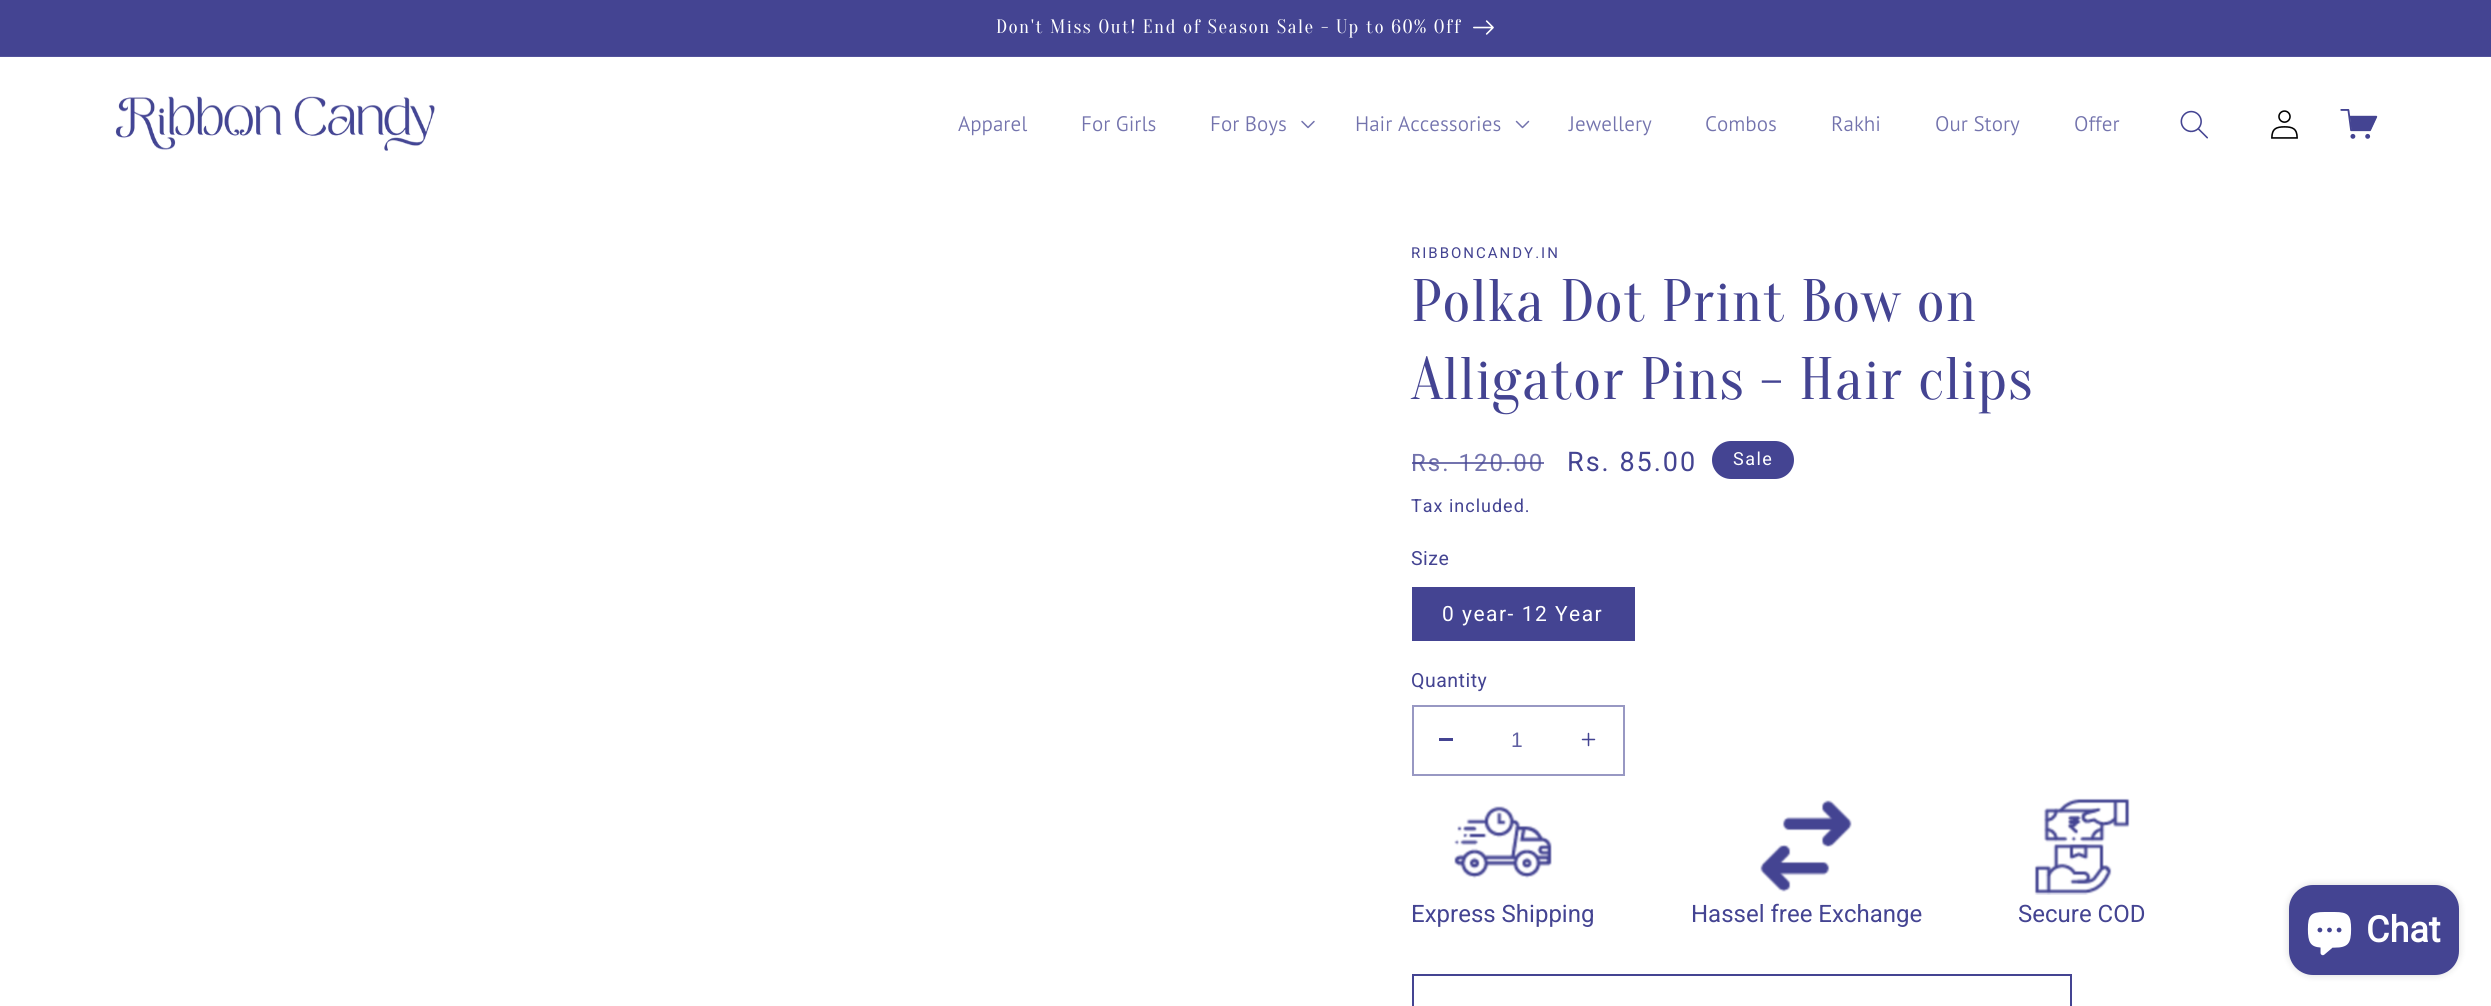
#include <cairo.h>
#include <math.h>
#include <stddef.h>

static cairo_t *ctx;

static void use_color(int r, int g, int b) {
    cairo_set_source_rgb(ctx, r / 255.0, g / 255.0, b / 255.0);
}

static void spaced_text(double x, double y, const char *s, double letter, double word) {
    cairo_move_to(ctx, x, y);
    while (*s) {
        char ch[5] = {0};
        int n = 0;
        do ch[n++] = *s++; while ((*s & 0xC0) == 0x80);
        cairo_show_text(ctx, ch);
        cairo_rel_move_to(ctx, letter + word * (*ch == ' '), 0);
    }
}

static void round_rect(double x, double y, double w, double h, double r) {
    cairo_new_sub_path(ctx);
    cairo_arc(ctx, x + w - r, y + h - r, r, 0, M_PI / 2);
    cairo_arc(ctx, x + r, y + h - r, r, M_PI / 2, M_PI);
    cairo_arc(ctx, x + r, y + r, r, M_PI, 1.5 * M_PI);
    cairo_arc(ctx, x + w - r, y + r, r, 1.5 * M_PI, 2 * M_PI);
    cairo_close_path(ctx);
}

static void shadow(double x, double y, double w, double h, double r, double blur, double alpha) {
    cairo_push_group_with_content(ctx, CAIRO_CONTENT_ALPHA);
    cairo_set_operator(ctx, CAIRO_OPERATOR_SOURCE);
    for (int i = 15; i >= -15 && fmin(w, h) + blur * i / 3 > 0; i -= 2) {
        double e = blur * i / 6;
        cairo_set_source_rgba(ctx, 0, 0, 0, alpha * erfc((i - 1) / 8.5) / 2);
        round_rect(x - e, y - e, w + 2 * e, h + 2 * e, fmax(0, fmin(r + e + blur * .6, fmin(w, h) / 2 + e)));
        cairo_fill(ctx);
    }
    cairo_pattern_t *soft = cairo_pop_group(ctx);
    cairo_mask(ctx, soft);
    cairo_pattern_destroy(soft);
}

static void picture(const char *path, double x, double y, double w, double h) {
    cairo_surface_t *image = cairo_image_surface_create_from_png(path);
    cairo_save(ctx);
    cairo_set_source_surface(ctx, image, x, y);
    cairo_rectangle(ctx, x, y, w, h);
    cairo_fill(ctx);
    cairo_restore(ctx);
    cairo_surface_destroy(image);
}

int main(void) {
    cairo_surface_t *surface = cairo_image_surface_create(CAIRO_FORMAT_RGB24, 2491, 1006);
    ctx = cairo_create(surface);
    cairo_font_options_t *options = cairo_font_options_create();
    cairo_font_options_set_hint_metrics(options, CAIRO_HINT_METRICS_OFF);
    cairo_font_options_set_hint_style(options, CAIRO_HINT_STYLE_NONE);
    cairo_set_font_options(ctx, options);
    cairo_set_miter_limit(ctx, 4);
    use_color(255, 255, 255);
    cairo_paint(ctx);
    use_color(68, 68, 146);
    cairo_rectangle(ctx, 0, 0, 2491, 56);
    cairo_fill(ctx);
    use_color(83, 83, 155);
    cairo_rectangle(ctx, 0, 56, 2491, 1);
    cairo_fill(ctx);
    cairo_select_font_face(ctx, "Oranienbaum", CAIRO_FONT_SLANT_NORMAL, CAIRO_FONT_WEIGHT_NORMAL);
    cairo_set_font_size(ctx, 19.5);
    use_color(255, 255, 255);
    spaced_text(996, 33, "Don't Miss Out! End of Season Sale - Up to 60% Off", 1.5, 0);
    picture("img1.png", 1473, 20, 21, 15);
    picture("img2.png", 115, 96, 320, 55);
    cairo_select_font_face(ctx, "PT Sans Light", CAIRO_FONT_SLANT_NORMAL, CAIRO_FONT_WEIGHT_NORMAL);
    cairo_set_font_size(ctx, 21);
    use_color(115, 115, 173);
    cairo_move_to(ctx, 958, 131);
    cairo_show_text(ctx, "Apparel");
    cairo_move_to(ctx, 1081, 131);
    cairo_show_text(ctx, "For Girls");
    cairo_move_to(ctx, 1210, 131);
    cairo_show_text(ctx, "For Boys");
    picture("img3.png", 1301, 120, 14, 9);
    cairo_move_to(ctx, 1355, 131);
    cairo_show_text(ctx, "Hair Accessories");
    picture("img4.png", 1515, 120, 15, 9);
    cairo_move_to(ctx, 1569, 131);
    cairo_show_text(ctx, "Jewellery");
    cairo_move_to(ctx, 1705, 131);
    cairo_show_text(ctx, "Combos");
    cairo_move_to(ctx, 1831, 131);
    cairo_show_text(ctx, "Rakhi");
    cairo_move_to(ctx, 1935, 131);
    cairo_show_text(ctx, "Our Story");
    cairo_move_to(ctx, 2074, 131);
    cairo_show_text(ctx, "Offer");
    picture("img5.png", 2180, 110, 28, 29);
    picture("img6.png", 2271, 110, 27, 29);
    picture("img7.png", 2340, 109, 38, 30);
    cairo_select_font_face(ctx, "Roboto", CAIRO_FONT_SLANT_NORMAL, CAIRO_FONT_WEIGHT_NORMAL);
    cairo_set_font_size(ctx, 15);
    use_color(68, 68, 146);
    spaced_text(1411, 258, "RIBBONCANDY.IN", 2, 0);
    cairo_select_font_face(ctx, "Oranienbaum", CAIRO_FONT_SLANT_NORMAL, CAIRO_FONT_WEIGHT_NORMAL);
    cairo_set_font_size(ctx, 60);
    spaced_text(1411, 321, "Polka Dot Print Bow on", 0.9, 0);
    spaced_text(1411, 399, "Alligator Pins - Hair clips", 0.9, 0);
    cairo_select_font_face(ctx, "Roboto", CAIRO_FONT_SLANT_NORMAL, CAIRO_FONT_WEIGHT_NORMAL);
    cairo_set_font_size(ctx, 24);
    use_color(115, 115, 173);
    spaced_text(1411, 471, "Rs. 120.00", 2, 0);
    cairo_set_source_rgba(ctx, 0.267, 0.267, 0.573, 0.75);
    cairo_rectangle(ctx, 1412, 462, 132, 2);
    cairo_fill(ctx);
    cairo_set_font_size(ctx, 27);
    use_color(68, 68, 146);
    spaced_text(1567, 471, "Rs. 85.00", 2, 0);
    round_rect(1713, 442, 80, 36, 18);
    cairo_fill_preserve(ctx);
    cairo_stroke(ctx);
    cairo_set_font_size(ctx, 18);
    use_color(255, 255, 255);
    spaced_text(1733, 465, "Sale", 1.5, 0);
    use_color(68, 68, 146);
    spaced_text(1411, 512, "Tax included.", 1, 0);
    cairo_set_font_size(ctx, 19.5);
    spaced_text(1411, 565, "Size", 0.5, 0);
    cairo_rectangle(ctx, 1412, 587, 223, 54);
    cairo_fill(ctx);
    cairo_set_font_size(ctx, 21);
    use_color(255, 255, 255);
    spaced_text(1442, 621, "0 year- 12 Year", 1.5, 0);
    cairo_set_font_size(ctx, 19.5);
    use_color(68, 68, 146);
    spaced_text(1411, 687, "Quantity", 0.5, 0);
    cairo_rectangle(ctx, 1439, 738, 14, 3);
    cairo_fill(ctx);
    picture("img8.png", 1581, 732, 15, 15);
    cairo_rectangle(ctx, 1413, 706, 211, 69);
    use_color(152, 152, 195);
    cairo_stroke(ctx);
    cairo_select_font_face(ctx, "Liberation Sans", CAIRO_FONT_SLANT_NORMAL, CAIRO_FONT_WEIGHT_NORMAL);
    cairo_set_font_size(ctx, 21);
    use_color(96, 96, 162);
    cairo_move_to(ctx, 1511, 747);
    cairo_show_text(ctx, "1");
    picture("img9.png", 1454, 806, 98, 73);
    cairo_select_font_face(ctx, "Roboto", CAIRO_FONT_SLANT_NORMAL, CAIRO_FONT_WEIGHT_NORMAL);
    cairo_set_font_size(ctx, 24);
    use_color(68, 68, 146);
    cairo_move_to(ctx, 1411, 922);
    cairo_show_text(ctx, "Express Shipping");
    picture("img10.png", 1760, 800, 92, 92);
    cairo_move_to(ctx, 1691, 922);
    cairo_show_text(ctx, "Hassel free Exchange");
    picture("img11.png", 2034, 798, 96, 97);
    cairo_move_to(ctx, 2018, 922);
    cairo_show_text(ctx, "Secure COD");
    cairo_rectangle(ctx, 1413, 975, 658, 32);
    cairo_stroke(ctx);
    use_color(0, 0, 0);
    shadow(2289, 885, 170, 90, 24, 4, 0.15);
    use_color(68, 68, 146);
    round_rect(2289, 885, 170, 90, 24);
    cairo_fill(ctx);
    picture("img12.png", 2307, 912, 45, 44);
    cairo_select_font_face(ctx, "Roboto", CAIRO_FONT_SLANT_NORMAL, CAIRO_FONT_WEIGHT_BOLD);
    cairo_set_font_size(ctx, 36);
    use_color(255, 255, 255);
    cairo_move_to(ctx, 2366, 942);
    cairo_show_text(ctx, "Chat");
    cairo_surface_write_to_png(surface, "result.png");
    cairo_font_options_destroy(options);
    cairo_destroy(ctx);
    cairo_surface_destroy(surface);
    return 0;
}
